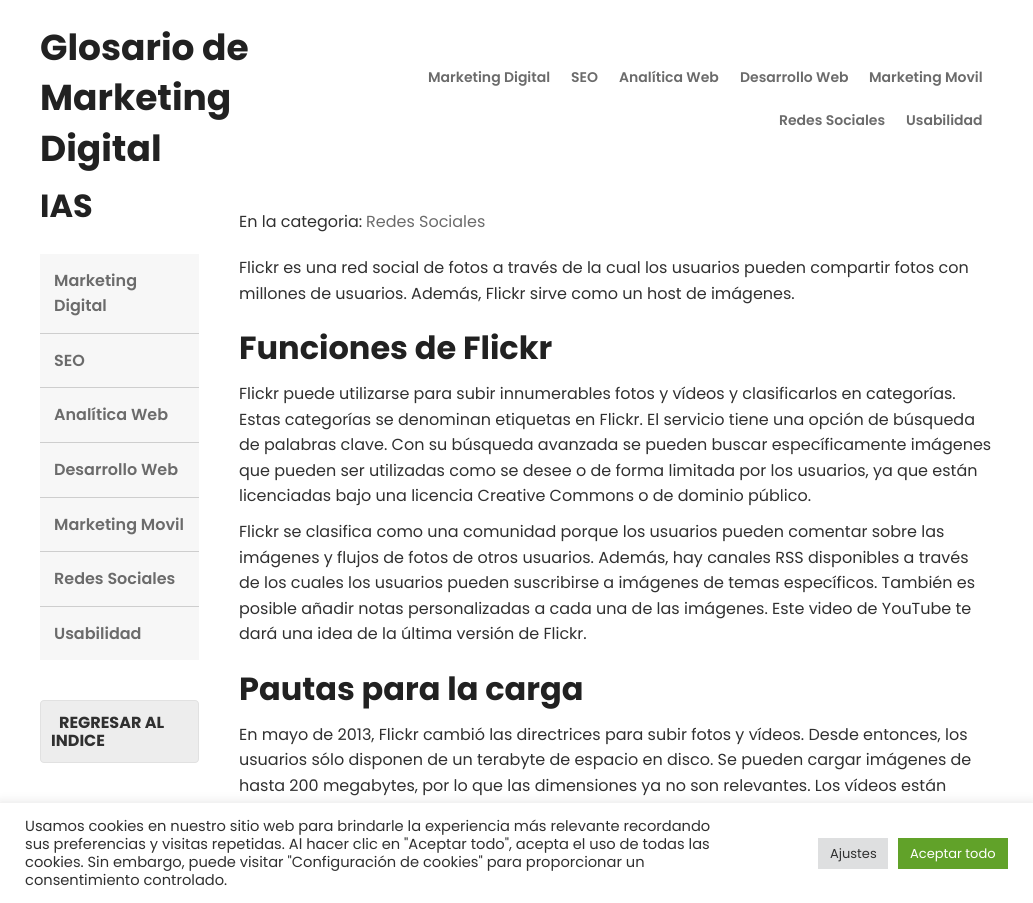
#include <cairo.h>
#include <math.h>
#include <stddef.h>

static cairo_t *ctx;

static void use_color(int r, int g, int b) {
    cairo_set_source_rgb(ctx, r / 255.0, g / 255.0, b / 255.0);
}

static void round_rect(double x, double y, double w, double h, double r) {
    cairo_new_sub_path(ctx);
    cairo_arc(ctx, x + w - r, y + h - r, r, 0, M_PI / 2);
    cairo_arc(ctx, x + r, y + h - r, r, M_PI / 2, M_PI);
    cairo_arc(ctx, x + r, y + r, r, M_PI, 1.5 * M_PI);
    cairo_arc(ctx, x + w - r, y + r, r, 1.5 * M_PI, 2 * M_PI);
    cairo_close_path(ctx);
}

static void shadow(double x, double y, double w, double h, double r, double blur, double alpha) {
    cairo_push_group_with_content(ctx, CAIRO_CONTENT_ALPHA);
    cairo_set_operator(ctx, CAIRO_OPERATOR_SOURCE);
    for (int i = 15; i >= -15 && fmin(w, h) + blur * i / 3 > 0; i -= 2) {
        double e = blur * i / 6;
        cairo_set_source_rgba(ctx, 0, 0, 0, alpha * erfc((i - 1) / 8.5) / 2);
        round_rect(x - e, y - e, w + 2 * e, h + 2 * e, fmax(0, fmin(r + e + blur * .6, fmin(w, h) / 2 + e)));
        cairo_fill(ctx);
    }
    cairo_pattern_t *soft = cairo_pop_group(ctx);
    cairo_mask(ctx, soft);
    cairo_pattern_destroy(soft);
}

int main(void) {
    cairo_surface_t *surface = cairo_image_surface_create(CAIRO_FORMAT_RGB24, 1033, 903);
    ctx = cairo_create(surface);
    cairo_font_options_t *options = cairo_font_options_create();
    cairo_font_options_set_hint_metrics(options, CAIRO_HINT_METRICS_OFF);
    cairo_font_options_set_hint_style(options, CAIRO_HINT_STYLE_NONE);
    cairo_set_font_options(ctx, options);
    cairo_set_miter_limit(ctx, 4);
    use_color(255, 255, 255);
    cairo_paint(ctx);
    cairo_select_font_face(ctx, "Poppins", CAIRO_FONT_SLANT_NORMAL, CAIRO_FONT_WEIGHT_BOLD);
    cairo_set_font_size(ctx, 36);
    use_color(33, 33, 33);
    cairo_move_to(ctx, 40, 60);
    cairo_show_text(ctx, "Glosario de");
    cairo_move_to(ctx, 40, 110);
    cairo_show_text(ctx, "Marketing");
    cairo_move_to(ctx, 40, 161);
    cairo_show_text(ctx, "Digital");
    cairo_select_font_face(ctx, "Poppins SemiBold", CAIRO_FONT_SLANT_NORMAL, CAIRO_FONT_WEIGHT_NORMAL);
    cairo_set_font_size(ctx, 14);
    use_color(107, 107, 107);
    cairo_move_to(ctx, 428, 82);
    cairo_show_text(ctx, "Marketing Digital");
    cairo_move_to(ctx, 571, 82);
    cairo_show_text(ctx, "SEO");
    cairo_move_to(ctx, 619, 82);
    cairo_show_text(ctx, "Analítica Web");
    cairo_move_to(ctx, 740, 82);
    cairo_show_text(ctx, "Desarrollo Web");
    cairo_move_to(ctx, 869, 82);
    cairo_show_text(ctx, "Marketing Movil");
    cairo_move_to(ctx, 779, 125);
    cairo_show_text(ctx, "Redes Sociales");
    cairo_move_to(ctx, 906, 125);
    cairo_show_text(ctx, "Usabilidad");
    cairo_select_font_face(ctx, "Poppins", CAIRO_FONT_SLANT_NORMAL, CAIRO_FONT_WEIGHT_BOLD);
    cairo_set_font_size(ctx, 32);
    use_color(33, 33, 33);
    cairo_move_to(ctx, 40, 217);
    cairo_show_text(ctx, "IAS");
    use_color(247, 247, 247);
    cairo_rectangle(ctx, 40, 254, 159, 406);
    cairo_fill(ctx);
    cairo_select_font_face(ctx, "Poppins SemiBold", CAIRO_FONT_SLANT_NORMAL, CAIRO_FONT_WEIGHT_NORMAL);
    cairo_set_font_size(ctx, 16);
    use_color(107, 107, 107);
    cairo_move_to(ctx, 54, 286);
    cairo_show_text(ctx, "Marketing");
    cairo_move_to(ctx, 54, 311);
    cairo_show_text(ctx, "Digital");
    use_color(206, 206, 206);
    cairo_rectangle(ctx, 40, 333, 159, 1);
    cairo_fill(ctx);
    use_color(107, 107, 107);
    cairo_move_to(ctx, 54, 366);
    cairo_show_text(ctx, "SEO");
    use_color(206, 206, 206);
    cairo_rectangle(ctx, 40, 387, 159, 1);
    cairo_fill(ctx);
    use_color(107, 107, 107);
    cairo_move_to(ctx, 54, 420);
    cairo_show_text(ctx, "Analítica Web");
    use_color(206, 206, 206);
    cairo_rectangle(ctx, 40, 442, 159, 1);
    cairo_fill(ctx);
    use_color(107, 107, 107);
    cairo_move_to(ctx, 54, 475);
    cairo_show_text(ctx, "Desarrollo Web");
    use_color(206, 206, 206);
    cairo_rectangle(ctx, 40, 497, 159, 1);
    cairo_fill(ctx);
    use_color(107, 107, 107);
    cairo_move_to(ctx, 54, 530);
    cairo_show_text(ctx, "Marketing Movil");
    use_color(206, 206, 206);
    cairo_rectangle(ctx, 40, 551, 159, 1);
    cairo_fill(ctx);
    use_color(107, 107, 107);
    cairo_move_to(ctx, 54, 584);
    cairo_show_text(ctx, "Redes Sociales");
    use_color(206, 206, 206);
    cairo_rectangle(ctx, 40, 606, 159, 1);
    cairo_fill(ctx);
    use_color(107, 107, 107);
    cairo_move_to(ctx, 54, 639);
    cairo_show_text(ctx, "Usabilidad");
    use_color(237, 237, 237);
    round_rect(40.5, 700.5, 158, 62, 3.5);
    cairo_fill_preserve(ctx);
    use_color(225, 225, 225);
    cairo_set_line_width(ctx, 1);
    cairo_stroke(ctx);
    cairo_select_font_face(ctx, "Poppins", CAIRO_FONT_SLANT_NORMAL, CAIRO_FONT_WEIGHT_BOLD);
    use_color(48, 48, 48);
    cairo_move_to(ctx, 59, 728);
    cairo_show_text(ctx, "REGRESAR AL");
    cairo_move_to(ctx, 51, 746);
    cairo_show_text(ctx, "INDICE");
    cairo_select_font_face(ctx, "Poppins", CAIRO_FONT_SLANT_NORMAL, CAIRO_FONT_WEIGHT_NORMAL);
    cairo_move_to(ctx, 239, 227);
    cairo_show_text(ctx, "En la categoria:");
    use_color(107, 107, 107);
    cairo_move_to(ctx, 366, 227);
    cairo_show_text(ctx, "Redes Sociales");
    use_color(48, 48, 48);
    cairo_move_to(ctx, 239, 273);
    cairo_show_text(ctx, "Flickr es una red social de fotos a través de la cual los usuarios pueden compartir fotos con");
    cairo_move_to(ctx, 239, 299);
    cairo_show_text(ctx, "millones de usuarios. Además, Flickr sirve como un host de imágenes.");
    cairo_select_font_face(ctx, "Poppins", CAIRO_FONT_SLANT_NORMAL, CAIRO_FONT_WEIGHT_BOLD);
    cairo_set_font_size(ctx, 32);
    use_color(33, 33, 33);
    cairo_move_to(ctx, 239, 359);
    cairo_show_text(ctx, "Funciones de Flickr");
    cairo_select_font_face(ctx, "Poppins", CAIRO_FONT_SLANT_NORMAL, CAIRO_FONT_WEIGHT_NORMAL);
    cairo_set_font_size(ctx, 16);
    use_color(48, 48, 48);
    cairo_move_to(ctx, 239, 399);
    cairo_show_text(ctx, "Flickr puede utilizarse para subir innumerables fotos y vídeos y clasificarlos en categorías.");
    cairo_move_to(ctx, 239, 425);
    cairo_show_text(ctx, "Estas categorías se denominan etiquetas en Flickr. El servicio tiene una opción de búsqueda");
    cairo_move_to(ctx, 239, 450);
    cairo_show_text(ctx, "de palabras clave. Con su búsqueda avanzada se pueden buscar específicamente imágenes");
    cairo_move_to(ctx, 239, 476);
    cairo_show_text(ctx, "que pueden ser utilizadas como se desee o de forma limitada por los usuarios, ya que están");
    cairo_move_to(ctx, 239, 501);
    cairo_show_text(ctx, "licenciadas bajo una licencia Creative Commons o de dominio público.");
    cairo_move_to(ctx, 239, 537);
    cairo_show_text(ctx, "Flickr se clasifica como una comunidad porque los usuarios pueden comentar sobre las");
    cairo_move_to(ctx, 239, 563);
    cairo_show_text(ctx, "imágenes y flujos de fotos de otros usuarios. Además, hay canales RSS disponibles a través");
    cairo_move_to(ctx, 239, 588);
    cairo_show_text(ctx, "de los cuales los usuarios pueden suscribirse a imágenes de temas específicos. También es");
    cairo_move_to(ctx, 239, 614);
    cairo_show_text(ctx, "posible añadir notas personalizadas a cada una de las imágenes. Este video de YouTube te");
    cairo_move_to(ctx, 239, 639);
    cairo_show_text(ctx, "dará una idea de la última versión de Flickr.");
    cairo_select_font_face(ctx, "Poppins", CAIRO_FONT_SLANT_NORMAL, CAIRO_FONT_WEIGHT_BOLD);
    cairo_set_font_size(ctx, 32);
    use_color(33, 33, 33);
    cairo_move_to(ctx, 239, 700);
    cairo_show_text(ctx, "Pautas para la carga");
    cairo_select_font_face(ctx, "Poppins", CAIRO_FONT_SLANT_NORMAL, CAIRO_FONT_WEIGHT_NORMAL);
    cairo_set_font_size(ctx, 16);
    use_color(48, 48, 48);
    cairo_move_to(ctx, 239, 740);
    cairo_show_text(ctx, "En mayo de 2013, Flickr cambió las directrices para subir fotos y vídeos. Desde entonces, los");
    cairo_move_to(ctx, 239, 765);
    cairo_show_text(ctx, "usuarios sólo disponen de un terabyte de espacio en disco. Se pueden cargar imágenes de");
    cairo_move_to(ctx, 239, 791);
    cairo_show_text(ctx, "hasta 200 megabytes, por lo que las dimensiones ya no son relevantes. Los vídeos están");
    use_color(172, 171, 171);
    shadow(0, 802, 1033, 100, 0, 5, 0.3);
    use_color(255, 255, 255);
    cairo_rectangle(ctx, 0, 803, 1033, 100);
    cairo_fill(ctx);
    cairo_set_font_size(ctx, 14.65);
    use_color(48, 48, 48);
    cairo_move_to(ctx, 25, 831);
    cairo_show_text(ctx, "Usamos cookies en nuestro sitio web para brindarle la experiencia más relevante recordando");
    cairo_move_to(ctx, 25, 849);
    cairo_show_text(ctx, "sus preferencias y visitas repetidas. Al hacer clic en \"Aceptar todo\", acepta el uso de todas las");
    cairo_move_to(ctx, 25, 867);
    cairo_show_text(ctx, "cookies. Sin embargo, puede visitar \"Configuración de cookies\" para proporcionar un");
    cairo_move_to(ctx, 25, 885);
    cairo_show_text(ctx, "consentimiento controlado.");
    use_color(222, 223, 224);
    cairo_rectangle(ctx, 818, 838, 70, 31);
    cairo_fill(ctx);
    cairo_set_font_size(ctx, 13);
    use_color(48, 48, 48);
    cairo_move_to(ctx, 830, 858);
    cairo_show_text(ctx, "Ajustes");
    use_color(97, 162, 41);
    cairo_rectangle(ctx, 898, 838, 110, 31);
    cairo_fill(ctx);
    use_color(255, 255, 255);
    cairo_move_to(ctx, 910, 858);
    cairo_show_text(ctx, "Aceptar todo");
    cairo_surface_write_to_png(surface, "result.png");
    cairo_font_options_destroy(options);
    cairo_destroy(ctx);
    cairo_surface_destroy(surface);
    return 0;
}
